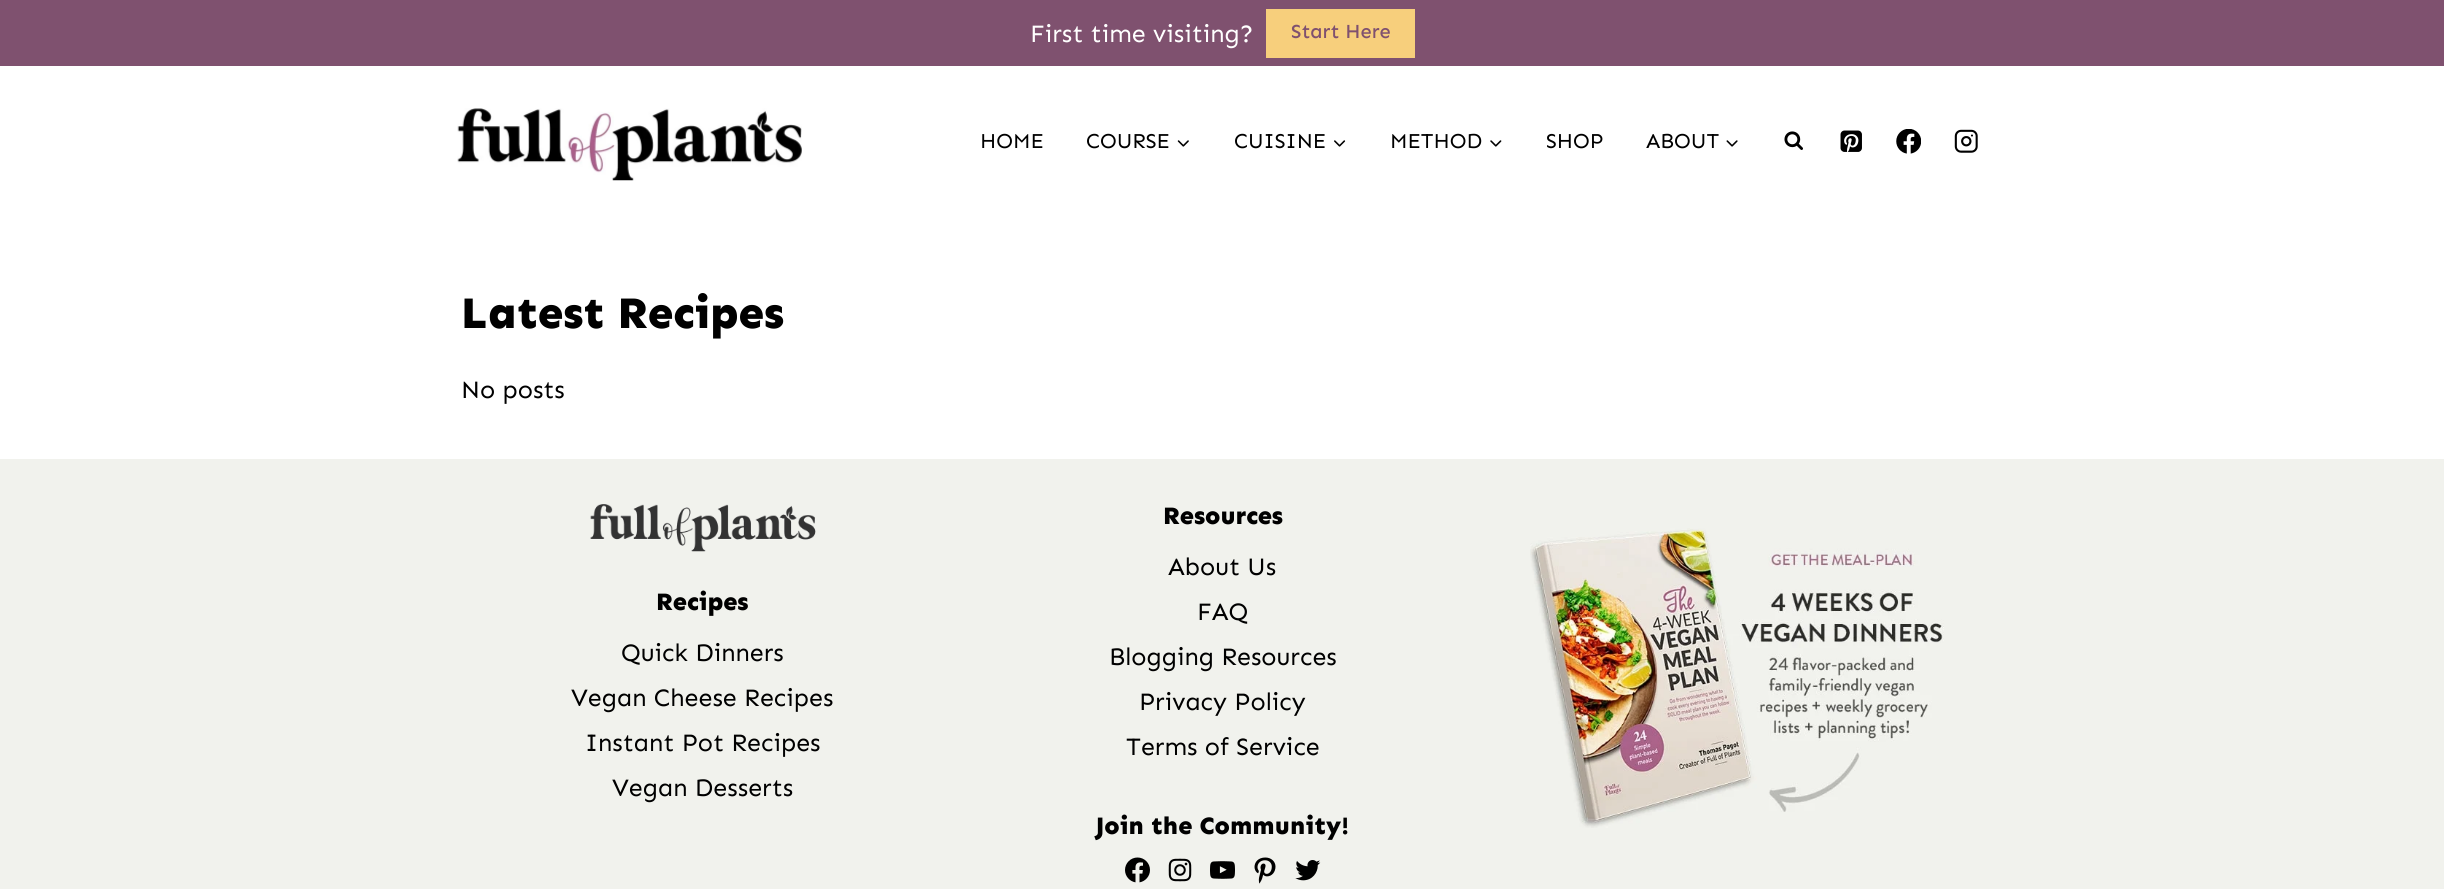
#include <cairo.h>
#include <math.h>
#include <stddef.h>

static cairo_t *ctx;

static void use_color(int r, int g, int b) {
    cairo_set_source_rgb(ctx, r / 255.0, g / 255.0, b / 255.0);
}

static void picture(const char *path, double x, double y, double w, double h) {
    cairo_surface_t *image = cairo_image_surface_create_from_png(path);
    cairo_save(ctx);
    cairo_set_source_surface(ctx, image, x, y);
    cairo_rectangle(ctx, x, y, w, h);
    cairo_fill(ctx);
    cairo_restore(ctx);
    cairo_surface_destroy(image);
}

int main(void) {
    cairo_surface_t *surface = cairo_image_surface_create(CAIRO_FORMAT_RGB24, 2444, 889);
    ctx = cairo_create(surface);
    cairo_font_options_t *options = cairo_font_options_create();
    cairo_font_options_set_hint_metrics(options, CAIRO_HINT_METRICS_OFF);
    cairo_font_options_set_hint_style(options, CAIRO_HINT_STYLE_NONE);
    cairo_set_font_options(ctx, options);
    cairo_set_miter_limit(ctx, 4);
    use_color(255, 255, 255);
    cairo_paint(ctx);
    use_color(127, 81, 111);
    cairo_rectangle(ctx, 0, 0, 2444, 66);
    cairo_fill(ctx);
    cairo_select_font_face(ctx, "Sen", CAIRO_FONT_SLANT_NORMAL, CAIRO_FONT_WEIGHT_NORMAL);
    cairo_set_font_size(ctx, 25);
    use_color(255, 255, 255);
    cairo_move_to(ctx, 1030, 42);
    cairo_show_text(ctx, "First time visiting?");
    use_color(247, 207, 124);
    cairo_rectangle(ctx, 1266, 9, 149, 49);
    cairo_fill(ctx);
    cairo_select_font_face(ctx, "Sen Medium", CAIRO_FONT_SLANT_NORMAL, CAIRO_FONT_WEIGHT_NORMAL);
    cairo_set_font_size(ctx, 20);
    use_color(127, 81, 111);
    cairo_move_to(ctx, 1291, 38);
    cairo_show_text(ctx, "Start Here");
    picture("img1.png", 457, 108, 345, 73);
    cairo_select_font_face(ctx, "Sen", CAIRO_FONT_SLANT_NORMAL, CAIRO_FONT_WEIGHT_NORMAL);
    cairo_set_font_size(ctx, 21.25);
    use_color(0, 0, 0);
    cairo_move_to(ctx, 980, 148);
    cairo_show_text(ctx, "HOME");
    cairo_move_to(ctx, 1086, 148);
    cairo_show_text(ctx, "COURSE");
    picture("img2.png", 1177, 140, 12, 7);
    cairo_move_to(ctx, 1234, 148);
    cairo_show_text(ctx, "CUISINE");
    picture("img3.png", 1334, 140, 12, 7);
    cairo_move_to(ctx, 1390, 148);
    cairo_show_text(ctx, "METHOD");
    picture("img4.png", 1490, 140, 12, 7);
    cairo_move_to(ctx, 1546, 148);
    cairo_show_text(ctx, "SHOP");
    cairo_move_to(ctx, 1646, 148);
    cairo_show_text(ctx, "ABOUT");
    picture("img5.png", 1726, 140, 12, 7);
    picture("img6.png", 1784, 131, 19, 19);
    picture("img7.png", 1840, 130, 22, 22);
    picture("img8.png", 1896, 129, 25, 25);
    picture("img9.png", 1954, 129, 24, 24);
    cairo_select_font_face(ctx, "Sen ExtraBold", CAIRO_FONT_SLANT_NORMAL, CAIRO_FONT_WEIGHT_NORMAL);
    cairo_set_font_size(ctx, 45);
    cairo_move_to(ctx, 461, 328);
    cairo_show_text(ctx, "Latest Recipes");
    cairo_select_font_face(ctx, "Sen", CAIRO_FONT_SLANT_NORMAL, CAIRO_FONT_WEIGHT_NORMAL);
    cairo_set_font_size(ctx, 25);
    cairo_move_to(ctx, 461, 398);
    cairo_show_text(ctx, "No posts");
    use_color(241, 242, 237);
    cairo_rectangle(ctx, 0, 459, 2444, 430);
    cairo_fill(ctx);
    picture("img10.png", 590, 504, 226, 48);
    cairo_select_font_face(ctx, "Sen ExtraBold", CAIRO_FONT_SLANT_NORMAL, CAIRO_FONT_WEIGHT_NORMAL);
    use_color(0, 0, 0);
    cairo_move_to(ctx, 656, 610);
    cairo_show_text(ctx, "Recipes");
    cairo_select_font_face(ctx, "Sen", CAIRO_FONT_SLANT_NORMAL, CAIRO_FONT_WEIGHT_NORMAL);
    cairo_move_to(ctx, 621, 661);
    cairo_show_text(ctx, "Quick Dinners");
    cairo_move_to(ctx, 571, 706);
    cairo_show_text(ctx, "Vegan Cheese Recipes");
    cairo_move_to(ctx, 585, 751);
    cairo_show_text(ctx, "Instant Pot Recipes");
    cairo_move_to(ctx, 612, 796);
    cairo_show_text(ctx, "Vegan Desserts");
    cairo_select_font_face(ctx, "Sen ExtraBold", CAIRO_FONT_SLANT_NORMAL, CAIRO_FONT_WEIGHT_NORMAL);
    cairo_move_to(ctx, 1163, 524);
    cairo_show_text(ctx, "Resources");
    cairo_select_font_face(ctx, "Sen", CAIRO_FONT_SLANT_NORMAL, CAIRO_FONT_WEIGHT_NORMAL);
    cairo_move_to(ctx, 1168, 575);
    cairo_show_text(ctx, "About Us");
    cairo_move_to(ctx, 1197, 620);
    cairo_show_text(ctx, "FAQ");
    cairo_move_to(ctx, 1109, 665);
    cairo_show_text(ctx, "Blogging Resources");
    cairo_move_to(ctx, 1139, 710);
    cairo_show_text(ctx, "Privacy Policy");
    cairo_move_to(ctx, 1126, 755);
    cairo_show_text(ctx, "Terms of Service");
    cairo_select_font_face(ctx, "Sen ExtraBold", CAIRO_FONT_SLANT_NORMAL, CAIRO_FONT_WEIGHT_NORMAL);
    cairo_move_to(ctx, 1095, 834);
    cairo_show_text(ctx, "Join the Community!");
    picture("img11.png", 1125, 857, 25, 26);
    picture("img12.png", 1168, 858, 24, 24);
    picture("img13.png", 1210, 861, 25, 18);
    picture("img14.png", 1254, 857, 22, 27);
    picture("img15.png", 1295, 860, 26, 21);
    picture("img16.png", 1530, 528, 414, 300);
    cairo_surface_write_to_png(surface, "result.png");
    cairo_font_options_destroy(options);
    cairo_destroy(ctx);
    cairo_surface_destroy(surface);
    return 0;
}
